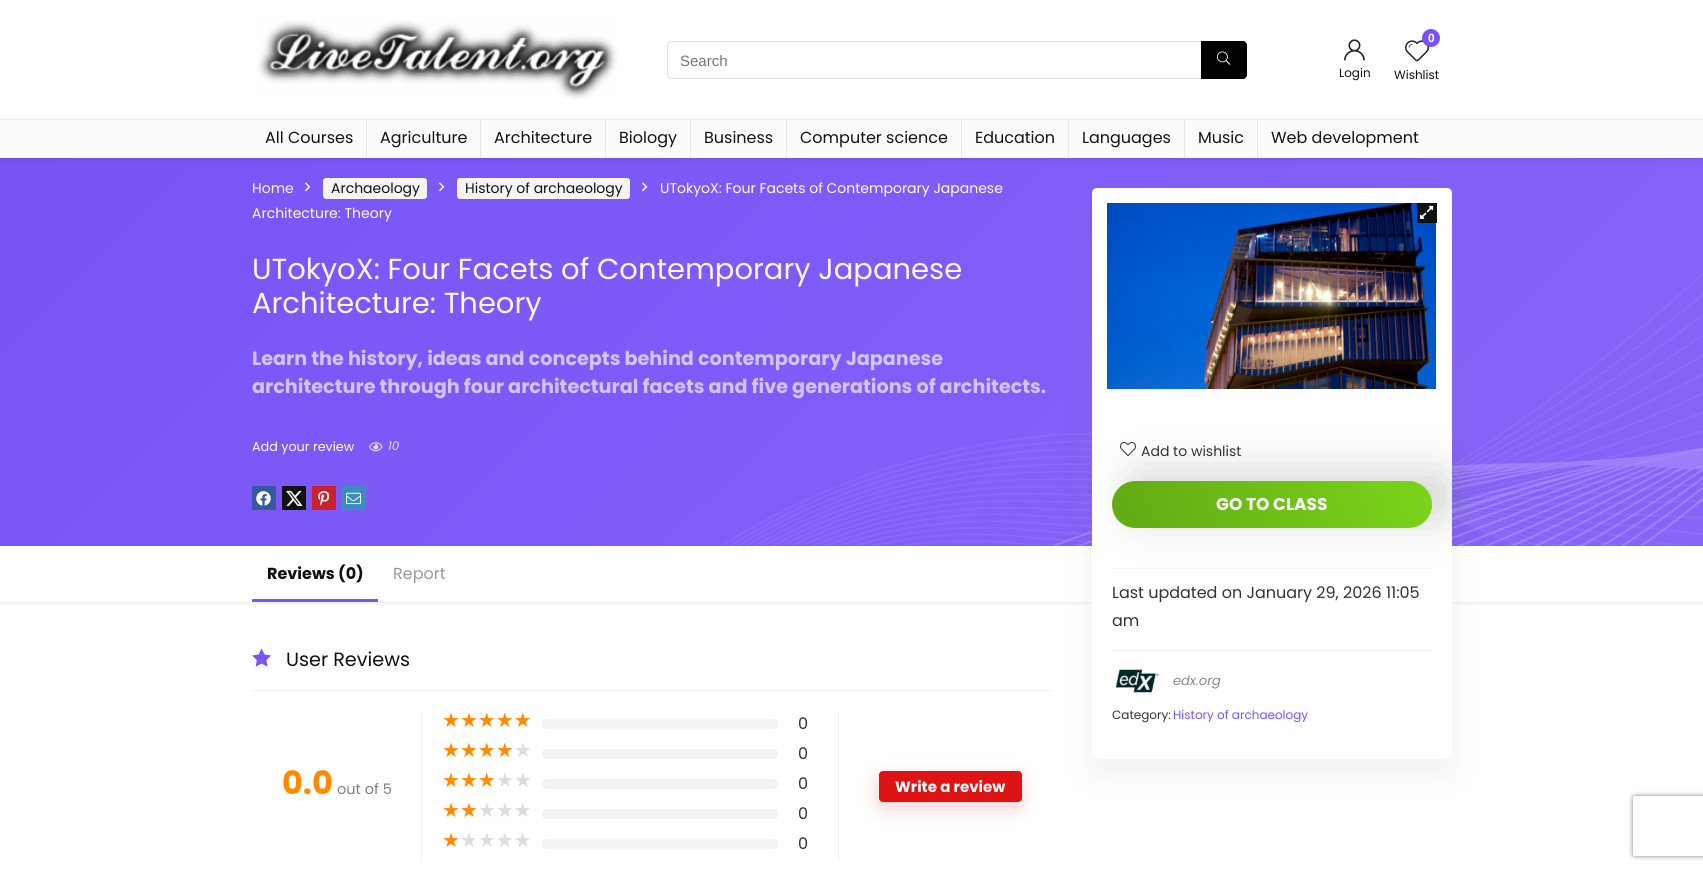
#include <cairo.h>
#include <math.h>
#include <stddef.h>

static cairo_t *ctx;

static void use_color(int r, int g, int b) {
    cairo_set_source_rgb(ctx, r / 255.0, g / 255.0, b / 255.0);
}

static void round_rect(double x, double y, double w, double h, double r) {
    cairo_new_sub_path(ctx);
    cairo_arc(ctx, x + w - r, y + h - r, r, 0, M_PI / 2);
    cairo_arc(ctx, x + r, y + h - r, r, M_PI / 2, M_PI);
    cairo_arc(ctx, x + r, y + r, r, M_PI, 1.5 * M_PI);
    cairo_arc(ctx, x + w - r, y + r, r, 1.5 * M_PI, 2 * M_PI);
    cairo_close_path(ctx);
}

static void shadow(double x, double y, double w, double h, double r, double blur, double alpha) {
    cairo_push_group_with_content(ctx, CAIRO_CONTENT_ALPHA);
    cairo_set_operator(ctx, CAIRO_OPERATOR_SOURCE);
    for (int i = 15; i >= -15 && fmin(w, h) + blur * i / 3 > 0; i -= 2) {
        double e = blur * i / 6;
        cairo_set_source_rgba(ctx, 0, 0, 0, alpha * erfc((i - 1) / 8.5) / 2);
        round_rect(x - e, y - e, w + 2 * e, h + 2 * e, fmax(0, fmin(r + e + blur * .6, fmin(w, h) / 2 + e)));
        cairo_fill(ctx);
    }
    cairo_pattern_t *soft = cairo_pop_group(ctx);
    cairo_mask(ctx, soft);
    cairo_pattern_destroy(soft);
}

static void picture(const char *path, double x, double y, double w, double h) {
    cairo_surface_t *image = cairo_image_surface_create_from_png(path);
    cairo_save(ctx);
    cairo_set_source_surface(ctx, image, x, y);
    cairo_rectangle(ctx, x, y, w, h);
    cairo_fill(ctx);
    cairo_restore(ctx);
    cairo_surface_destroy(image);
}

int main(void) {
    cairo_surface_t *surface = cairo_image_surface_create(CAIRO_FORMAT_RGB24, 1703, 870);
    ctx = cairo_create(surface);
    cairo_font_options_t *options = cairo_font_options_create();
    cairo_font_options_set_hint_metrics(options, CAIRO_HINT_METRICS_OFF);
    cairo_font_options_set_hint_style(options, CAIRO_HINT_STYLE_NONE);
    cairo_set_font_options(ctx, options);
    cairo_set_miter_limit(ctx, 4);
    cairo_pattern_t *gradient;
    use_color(255, 255, 255);
    cairo_paint(ctx);
    picture("img1.png", 257, 20, 360, 79);
    round_rect(667.5, 41.5, 579, 37, 3.5);
    use_color(225, 225, 225);
    cairo_set_line_width(ctx, 1);
    cairo_stroke(ctx);
    cairo_select_font_face(ctx, "Liberation Sans", CAIRO_FONT_SLANT_NORMAL, CAIRO_FONT_WEIGHT_NORMAL);
    cairo_set_font_size(ctx, 15);
    use_color(117, 117, 117);
    cairo_move_to(ctx, 680, 66);
    cairo_show_text(ctx, "Search");
    use_color(0, 0, 0);
    cairo_new_path(ctx);
    cairo_move_to(ctx, 1201, 41);
    cairo_line_to(ctx, 1243, 41);
    cairo_curve_to(ctx, 1245, 41, 1247, 43, 1247, 45);
    cairo_line_to(ctx, 1247, 75);
    cairo_curve_to(ctx, 1247, 77, 1245, 79, 1243, 79);
    cairo_line_to(ctx, 1201, 79);
    cairo_close_path(ctx);
    cairo_fill(ctx);
    picture("img2.png", 1217, 51, 14, 14);
    picture("img3.png", 1344, 39, 21, 22);
    cairo_select_font_face(ctx, "Poppins", CAIRO_FONT_SLANT_NORMAL, CAIRO_FONT_WEIGHT_NORMAL);
    cairo_set_font_size(ctx, 12);
    use_color(17, 17, 17);
    cairo_move_to(ctx, 1339, 77);
    cairo_show_text(ctx, "Login");
    picture("img4.png", 1405, 40, 24, 22);
    use_color(120, 84, 247);
    cairo_arc(ctx, 1431, 38, 9, 0, 2 * M_PI);
    cairo_fill(ctx);
    cairo_select_font_face(ctx, "Liberation Sans", CAIRO_FONT_SLANT_NORMAL, CAIRO_FONT_WEIGHT_BOLD);
    use_color(255, 255, 255);
    cairo_move_to(ctx, 1428, 42);
    cairo_show_text(ctx, "0");
    cairo_select_font_face(ctx, "Poppins", CAIRO_FONT_SLANT_NORMAL, CAIRO_FONT_WEIGHT_NORMAL);
    use_color(17, 17, 17);
    cairo_move_to(ctx, 1394, 79);
    cairo_show_text(ctx, "Wishlist");
    cairo_save(ctx);
    cairo_rectangle(ctx, 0, 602, 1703, 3);
    cairo_clip(ctx);
    use_color(0, 0, 0);
    shadow(0, 548, 1703, 56, 0, 2, 0.07);
    cairo_restore(ctx);
    gradient = cairo_pattern_create_linear(329, -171, 1374, 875);
    cairo_pattern_add_color_stop_rgba(gradient, 0, 0.471, 0.329, 0.969, 1);
    cairo_pattern_add_color_stop_rgba(gradient, 1, 0.525, 0.396, 0.973, 1);
    cairo_set_source(ctx, gradient);
    cairo_pattern_destroy(gradient);
    cairo_rectangle(ctx, 0, 158, 1703, 388);
    cairo_fill(ctx);
    cairo_set_font_size(ctx, 29);
    use_color(248, 248, 248);
    cairo_move_to(ctx, 252, 279);
    cairo_show_text(ctx, "UTokyoX: Four Facets of Contemporary Japanese");
    cairo_select_font_face(ctx, "Poppins", CAIRO_FONT_SLANT_NORMAL, CAIRO_FONT_WEIGHT_BOLD);
    cairo_set_font_size(ctx, 19.2);
    use_color(210, 197, 252);
    cairo_move_to(ctx, 252, 365);
    cairo_show_text(ctx, "Learn the history, ideas and concepts behind contemporary Japanese");
    cairo_move_to(ctx, 252, 393);
    cairo_show_text(ctx, "architecture through four architectural facets and five generations of architects.");
    picture("img17.png", 720, 273, 983, 273);
    use_color(240, 240, 240);
    cairo_rectangle(ctx, 252, 690, 800, 1);
    cairo_fill(ctx);
    use_color(119, 123, 146);
    shadow(1092, 203, 360, 571, 5, 15, 0.1);
    cairo_rectangle(ctx, -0.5, 119.5, 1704, 39);
    cairo_set_source_rgba(ctx, 0, 0, 0, 0.03);
    cairo_stroke(ctx);
    use_color(0, 0, 0);
    shadow(0, 121, 1703, 38, 0, 4, 0.1);
    use_color(252, 252, 252);
    cairo_rectangle(ctx, 0, 120, 1703, 38);
    cairo_fill(ctx);
    use_color(232, 232, 232);
    cairo_rectangle(ctx, 366, 120, 1, 38);
    cairo_fill(ctx);
    cairo_select_font_face(ctx, "Poppins", CAIRO_FONT_SLANT_NORMAL, CAIRO_FONT_WEIGHT_NORMAL);
    cairo_set_font_size(ctx, 16);
    use_color(17, 17, 17);
    cairo_move_to(ctx, 265, 143);
    cairo_show_text(ctx, "All Courses");
    use_color(232, 232, 232);
    cairo_rectangle(ctx, 480, 120, 1, 38);
    cairo_fill(ctx);
    use_color(17, 17, 17);
    cairo_move_to(ctx, 380, 143);
    cairo_show_text(ctx, "Agriculture");
    use_color(232, 232, 232);
    cairo_rectangle(ctx, 605, 120, 1, 38);
    cairo_fill(ctx);
    use_color(17, 17, 17);
    cairo_move_to(ctx, 494, 143);
    cairo_show_text(ctx, "Architecture");
    use_color(232, 232, 232);
    cairo_rectangle(ctx, 690, 120, 1, 38);
    cairo_fill(ctx);
    use_color(17, 17, 17);
    cairo_move_to(ctx, 619, 143);
    cairo_show_text(ctx, "Biology");
    use_color(232, 232, 232);
    cairo_rectangle(ctx, 786, 120, 1, 38);
    cairo_fill(ctx);
    use_color(17, 17, 17);
    cairo_move_to(ctx, 704, 143);
    cairo_show_text(ctx, "Business");
    use_color(232, 232, 232);
    cairo_rectangle(ctx, 961, 120, 1, 38);
    cairo_fill(ctx);
    use_color(17, 17, 17);
    cairo_move_to(ctx, 800, 143);
    cairo_show_text(ctx, "Computer science");
    use_color(232, 232, 232);
    cairo_rectangle(ctx, 1068, 120, 1, 38);
    cairo_fill(ctx);
    use_color(17, 17, 17);
    cairo_move_to(ctx, 975, 143);
    cairo_show_text(ctx, "Education");
    use_color(232, 232, 232);
    cairo_rectangle(ctx, 1184, 120, 1, 38);
    cairo_fill(ctx);
    use_color(17, 17, 17);
    cairo_move_to(ctx, 1082, 143);
    cairo_show_text(ctx, "Languages");
    use_color(232, 232, 232);
    cairo_rectangle(ctx, 1257, 120, 1, 38);
    cairo_fill(ctx);
    use_color(17, 17, 17);
    cairo_move_to(ctx, 1198, 143);
    cairo_show_text(ctx, "Music");
    cairo_move_to(ctx, 1271, 143);
    cairo_show_text(ctx, "Web development");
    cairo_set_font_size(ctx, 14);
    use_color(248, 248, 248);
    cairo_move_to(ctx, 252, 193);
    cairo_show_text(ctx, "Home");
    picture("img5.png", 305, 182, 6, 10);
    use_color(245, 245, 245);
    round_rect(323, 178, 104, 21, 3);
    cairo_fill(ctx);
    use_color(17, 17, 17);
    cairo_move_to(ctx, 331, 193);
    cairo_show_text(ctx, "Archaeology");
    picture("img6.png", 439, 182, 6, 10);
    use_color(245, 245, 245);
    round_rect(457, 178, 173, 21, 3);
    cairo_fill(ctx);
    use_color(17, 17, 17);
    cairo_move_to(ctx, 465, 193);
    cairo_show_text(ctx, "History of archaeology");
    picture("img7.png", 642, 182, 6, 10);
    use_color(255, 255, 255);
    cairo_move_to(ctx, 660, 193);
    cairo_show_text(ctx, "UTokyoX: Four Facets of Contemporary Japanese");
    cairo_move_to(ctx, 252, 218);
    cairo_show_text(ctx, "Architecture: Theory");
    cairo_set_font_size(ctx, 29);
    use_color(248, 248, 248);
    cairo_move_to(ctx, 252, 313);
    cairo_show_text(ctx, "Architecture: Theory");
    cairo_set_font_size(ctx, 12.75);
    use_color(255, 255, 255);
    cairo_move_to(ctx, 252, 451);
    cairo_show_text(ctx, "Add your review");
    picture("img8.png", 369, 442, 14, 10);
    cairo_select_font_face(ctx, "Poppins", CAIRO_FONT_SLANT_ITALIC, CAIRO_FONT_WEIGHT_NORMAL);
    cairo_set_font_size(ctx, 12);
    use_color(224, 224, 224);
    cairo_move_to(ctx, 388, 450);
    cairo_show_text(ctx, "10");
    use_color(57, 89, 159);
    cairo_rectangle(ctx, 252, 486, 24, 24);
    cairo_fill(ctx);
    picture("img9.png", 256, 491, 15, 15);
    use_color(17, 17, 17);
    cairo_rectangle(ctx, 282, 486, 24, 24);
    cairo_fill(ctx);
    picture("img10.png", 286, 490, 17, 16);
    use_color(202, 33, 42);
    cairo_rectangle(ctx, 312, 486, 24, 24);
    cairo_fill(ctx);
    picture("img11.png", 318, 491, 12, 15);
    use_color(59, 141, 189);
    cairo_rectangle(ctx, 342, 486, 24, 24);
    cairo_fill(ctx);
    picture("img12.png", 346, 492, 15, 13);
    use_color(255, 255, 255);
    round_rect(1092, 188, 360, 571, 5);
    cairo_fill(ctx);
    picture("img13.png", 1107, 203, 329, 186);
    use_color(17, 17, 17);
    cairo_rectangle(ctx, 1417, 203, 20, 20);
    cairo_fill(ctx);
    picture("img14.png", 1420, 205, 14, 14);
    picture("img15.png", 1120, 442, 16, 14);
    cairo_select_font_face(ctx, "Poppins", CAIRO_FONT_SLANT_NORMAL, CAIRO_FONT_WEIGHT_NORMAL);
    cairo_set_font_size(ctx, 14);
    use_color(51, 51, 51);
    cairo_move_to(ctx, 1141, 456);
    cairo_show_text(ctx, "Add to wishlist");
    use_color(240, 240, 240);
    cairo_rectangle(ctx, 1112, 568, 320, 1);
    cairo_fill(ctx);
    use_color(22, 39, 5);
    shadow(1131, 472, 320, 47, 23.5, 21.5, 0.18);
    gradient = cairo_pattern_create_linear(1123, 559, 1421, 450);
    cairo_pattern_add_color_stop_rgba(gradient, 0, 0.384, 0.663, 0.078, 1);
    cairo_pattern_add_color_stop_rgba(gradient, 1, 0.482, 0.835, 0.098, 1);
    cairo_set_source(ctx, gradient);
    cairo_pattern_destroy(gradient);
    round_rect(1112, 481, 320, 47, 23.5);
    cairo_fill(ctx);
    cairo_select_font_face(ctx, "Poppins", CAIRO_FONT_SLANT_NORMAL, CAIRO_FONT_WEIGHT_BOLD);
    cairo_set_font_size(ctx, 17);
    use_color(255, 255, 255);
    cairo_move_to(ctx, 1216, 510);
    cairo_show_text(ctx, "GO TO CLASS");
    cairo_select_font_face(ctx, "Poppins", CAIRO_FONT_SLANT_NORMAL, CAIRO_FONT_WEIGHT_NORMAL);
    cairo_set_font_size(ctx, 16);
    use_color(51, 51, 51);
    cairo_move_to(ctx, 1112, 598);
    cairo_show_text(ctx, "Last updated on January 29, 2026 11:05");
    cairo_move_to(ctx, 1112, 626);
    cairo_show_text(ctx, "am");
    use_color(240, 240, 240);
    cairo_rectangle(ctx, 1112, 650, 320, 1);
    cairo_fill(ctx);
    picture("img16.png", 1115, 669, 45, 24);
    cairo_select_font_face(ctx, "Poppins", CAIRO_FONT_SLANT_ITALIC, CAIRO_FONT_WEIGHT_NORMAL);
    cairo_set_font_size(ctx, 13);
    use_color(136, 136, 136);
    cairo_move_to(ctx, 1173, 685);
    cairo_show_text(ctx, "edx.org");
    cairo_select_font_face(ctx, "Poppins", CAIRO_FONT_SLANT_NORMAL, CAIRO_FONT_WEIGHT_NORMAL);
    cairo_set_font_size(ctx, 12);
    use_color(51, 51, 51);
    cairo_move_to(ctx, 1112, 719);
    cairo_show_text(ctx, "Category:");
    use_color(120, 84, 247);
    cairo_move_to(ctx, 1173, 719);
    cairo_show_text(ctx, "History of archaeology");
    cairo_select_font_face(ctx, "Poppins", CAIRO_FONT_SLANT_NORMAL, CAIRO_FONT_WEIGHT_BOLD);
    cairo_set_font_size(ctx, 16);
    use_color(17, 17, 17);
    cairo_move_to(ctx, 267, 579);
    cairo_show_text(ctx, "Reviews (0)");
    use_color(120, 84, 247);
    cairo_rectangle(ctx, 252, 599, 126, 3);
    cairo_fill(ctx);
    cairo_select_font_face(ctx, "Poppins", CAIRO_FONT_SLANT_NORMAL, CAIRO_FONT_WEIGHT_NORMAL);
    use_color(153, 153, 153);
    cairo_move_to(ctx, 393, 579);
    cairo_show_text(ctx, "Report");
    picture("img18.png", 252, 648, 20, 19);
    cairo_set_font_size(ctx, 19.2);
    use_color(17, 17, 17);
    cairo_move_to(ctx, 286, 666);
    cairo_show_text(ctx, "User Reviews");
    cairo_select_font_face(ctx, "Poppins", CAIRO_FONT_SLANT_NORMAL, CAIRO_FONT_WEIGHT_BOLD);
    cairo_set_font_size(ctx, 32);
    use_color(255, 138, 0);
    cairo_move_to(ctx, 282, 794);
    cairo_show_text(ctx, "0.0");
    cairo_select_font_face(ctx, "Poppins", CAIRO_FONT_SLANT_NORMAL, CAIRO_FONT_WEIGHT_NORMAL);
    cairo_set_font_size(ctx, 14.5);
    use_color(128, 128, 128);
    cairo_move_to(ctx, 337, 794);
    cairo_show_text(ctx, "out of 5");
    use_color(240, 240, 240);
    cairo_rectangle(ctx, 838, 711, 1, 150);
    cairo_fill(ctx);
    cairo_rectangle(ctx, 421, 711, 1, 150);
    cairo_fill(ctx);
    cairo_select_font_face(ctx, "DejaVu Sans", CAIRO_FONT_SLANT_NORMAL, CAIRO_FONT_WEIGHT_NORMAL);
    cairo_set_font_size(ctx, 20);
    use_color(255, 138, 0);
    cairo_move_to(ctx, 442, 727);
    cairo_show_text(ctx, "★★★★★");
    use_color(243, 243, 243);
    round_rect(542, 719, 236, 10, 4);
    cairo_fill(ctx);
    cairo_select_font_face(ctx, "Poppins", CAIRO_FONT_SLANT_NORMAL, CAIRO_FONT_WEIGHT_NORMAL);
    cairo_set_font_size(ctx, 16);
    use_color(51, 51, 51);
    cairo_move_to(ctx, 798, 729);
    cairo_show_text(ctx, "0");
    cairo_select_font_face(ctx, "DejaVu Sans", CAIRO_FONT_SLANT_NORMAL, CAIRO_FONT_WEIGHT_NORMAL);
    cairo_set_font_size(ctx, 20);
    use_color(255, 138, 0);
    cairo_move_to(ctx, 442, 757);
    cairo_show_text(ctx, "★★★★");
    use_color(224, 218, 223);
    cairo_move_to(ctx, 514, 757);
    cairo_show_text(ctx, "★");
    use_color(243, 243, 243);
    round_rect(542, 749, 236, 10, 4);
    cairo_fill(ctx);
    cairo_select_font_face(ctx, "Poppins", CAIRO_FONT_SLANT_NORMAL, CAIRO_FONT_WEIGHT_NORMAL);
    cairo_set_font_size(ctx, 16);
    use_color(51, 51, 51);
    cairo_move_to(ctx, 798, 759);
    cairo_show_text(ctx, "0");
    cairo_select_font_face(ctx, "DejaVu Sans", CAIRO_FONT_SLANT_NORMAL, CAIRO_FONT_WEIGHT_NORMAL);
    cairo_set_font_size(ctx, 20);
    use_color(255, 138, 0);
    cairo_move_to(ctx, 442, 787);
    cairo_show_text(ctx, "★★★");
    use_color(224, 218, 223);
    cairo_move_to(ctx, 496, 787);
    cairo_show_text(ctx, "★★");
    use_color(243, 243, 243);
    round_rect(542, 779, 236, 10, 4);
    cairo_fill(ctx);
    cairo_select_font_face(ctx, "Poppins", CAIRO_FONT_SLANT_NORMAL, CAIRO_FONT_WEIGHT_NORMAL);
    cairo_set_font_size(ctx, 16);
    use_color(51, 51, 51);
    cairo_move_to(ctx, 798, 789);
    cairo_show_text(ctx, "0");
    cairo_select_font_face(ctx, "DejaVu Sans", CAIRO_FONT_SLANT_NORMAL, CAIRO_FONT_WEIGHT_NORMAL);
    cairo_set_font_size(ctx, 20);
    use_color(255, 138, 0);
    cairo_move_to(ctx, 442, 817);
    cairo_show_text(ctx, "★★");
    use_color(224, 218, 223);
    cairo_move_to(ctx, 478, 817);
    cairo_show_text(ctx, "★★★");
    use_color(243, 243, 243);
    round_rect(542, 809, 236, 10, 4);
    cairo_fill(ctx);
    cairo_select_font_face(ctx, "Poppins", CAIRO_FONT_SLANT_NORMAL, CAIRO_FONT_WEIGHT_NORMAL);
    cairo_set_font_size(ctx, 16);
    use_color(51, 51, 51);
    cairo_move_to(ctx, 798, 819);
    cairo_show_text(ctx, "0");
    cairo_select_font_face(ctx, "DejaVu Sans", CAIRO_FONT_SLANT_NORMAL, CAIRO_FONT_WEIGHT_NORMAL);
    cairo_set_font_size(ctx, 20);
    use_color(255, 138, 0);
    cairo_move_to(ctx, 442, 847);
    cairo_show_text(ctx, "★");
    use_color(224, 218, 223);
    cairo_move_to(ctx, 460, 847);
    cairo_show_text(ctx, "★★★★");
    use_color(243, 243, 243);
    round_rect(542, 839, 236, 10, 4);
    cairo_fill(ctx);
    cairo_select_font_face(ctx, "Poppins", CAIRO_FONT_SLANT_NORMAL, CAIRO_FONT_WEIGHT_NORMAL);
    cairo_set_font_size(ctx, 16);
    use_color(51, 51, 51);
    cairo_move_to(ctx, 798, 849);
    cairo_show_text(ctx, "0");
    use_color(222, 20, 20);
    shadow(878, 777, 143, 31, 4, 9.5, 0.2);
    use_color(222, 20, 20);
    round_rect(879, 771, 143, 31, 4);
    cairo_fill(ctx);
    cairo_select_font_face(ctx, "Poppins", CAIRO_FONT_SLANT_NORMAL, CAIRO_FONT_WEIGHT_BOLD);
    cairo_set_font_size(ctx, 15);
    use_color(255, 255, 255);
    cairo_move_to(ctx, 895, 792);
    cairo_show_text(ctx, "Write a review");
    cairo_save(ctx);
    cairo_set_fill_rule(ctx, CAIRO_FILL_RULE_EVEN_ODD);
    cairo_new_path(ctx);
    cairo_move_to(ctx, 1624, 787);
    cairo_line_to(ctx, 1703, 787);
    cairo_line_to(ctx, 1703, 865);
    cairo_line_to(ctx, 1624, 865);
    cairo_close_path(ctx);
    cairo_move_to(ctx, 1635, 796);
    cairo_line_to(ctx, 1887, 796);
    cairo_curve_to(ctx, 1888, 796, 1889, 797, 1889, 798);
    cairo_line_to(ctx, 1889, 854);
    cairo_curve_to(ctx, 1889, 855, 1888, 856, 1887, 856);
    cairo_line_to(ctx, 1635, 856);
    cairo_curve_to(ctx, 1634, 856, 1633, 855, 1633, 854);
    cairo_line_to(ctx, 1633, 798);
    cairo_curve_to(ctx, 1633, 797, 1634, 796, 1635, 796);
    cairo_close_path(ctx);
    cairo_clip(ctx);
    use_color(128, 128, 128);
    shadow(1633, 796, 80, 60, 2, 2.5, 1);
    cairo_restore(ctx);
    cairo_surface_write_to_png(surface, "result.png");
    cairo_font_options_destroy(options);
    cairo_destroy(ctx);
    cairo_surface_destroy(surface);
    return 0;
}
